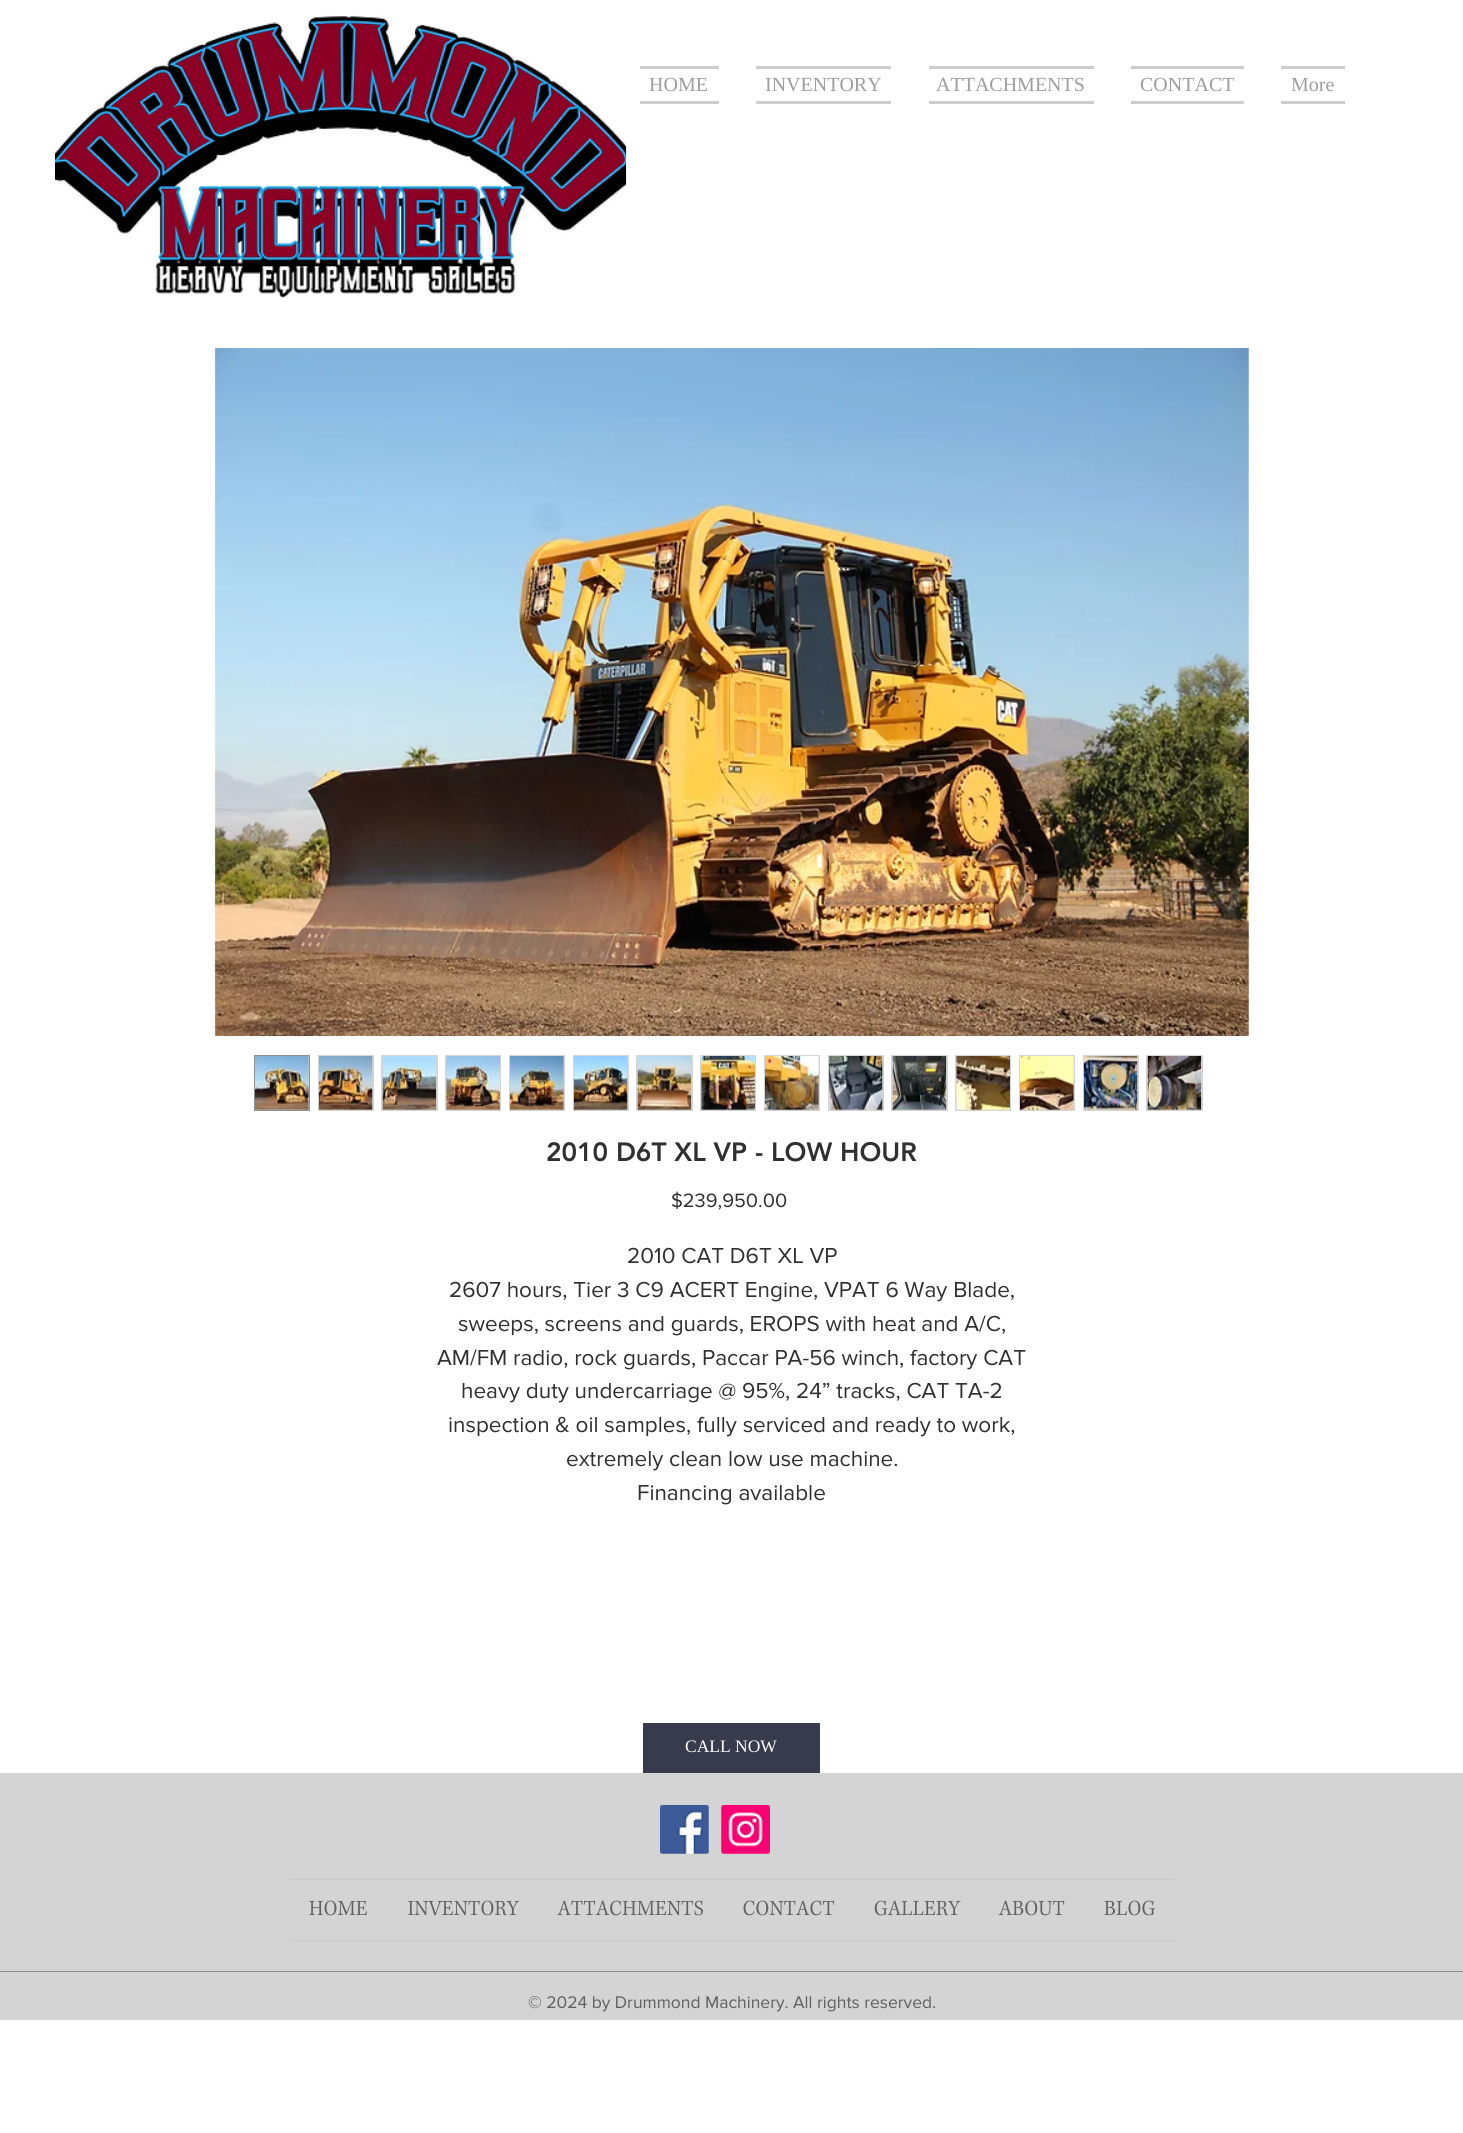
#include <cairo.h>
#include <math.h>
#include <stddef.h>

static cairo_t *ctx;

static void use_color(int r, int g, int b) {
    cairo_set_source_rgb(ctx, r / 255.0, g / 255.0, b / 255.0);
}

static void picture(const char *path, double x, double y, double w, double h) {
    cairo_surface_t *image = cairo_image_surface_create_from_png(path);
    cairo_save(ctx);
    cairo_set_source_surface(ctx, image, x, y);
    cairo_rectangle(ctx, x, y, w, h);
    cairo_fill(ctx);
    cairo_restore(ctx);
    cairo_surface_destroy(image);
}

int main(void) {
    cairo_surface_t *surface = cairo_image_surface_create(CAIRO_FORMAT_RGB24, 1463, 2133);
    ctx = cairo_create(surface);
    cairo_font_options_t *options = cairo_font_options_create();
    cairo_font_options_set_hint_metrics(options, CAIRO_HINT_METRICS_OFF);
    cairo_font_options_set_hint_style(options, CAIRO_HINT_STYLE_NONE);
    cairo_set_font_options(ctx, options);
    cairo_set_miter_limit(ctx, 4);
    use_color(255, 255, 255);
    cairo_paint(ctx);
    picture("img1.png", 55, 14, 572, 284);
    use_color(204, 204, 204);
    cairo_rectangle(ctx, 640, 66, 79, 3);
    cairo_fill(ctx);
    cairo_rectangle(ctx, 640, 101, 79, 3);
    cairo_fill(ctx);
    cairo_select_font_face(ctx, "Liberation Serif", CAIRO_FONT_SLANT_NORMAL, CAIRO_FONT_WEIGHT_NORMAL);
    cairo_set_font_size(ctx, 20);
    use_color(158, 158, 158);
    cairo_move_to(ctx, 649, 91);
    cairo_show_text(ctx, "HOME");
    use_color(204, 204, 204);
    cairo_rectangle(ctx, 756, 66, 135, 3);
    cairo_fill(ctx);
    cairo_rectangle(ctx, 756, 101, 135, 3);
    cairo_fill(ctx);
    use_color(158, 158, 158);
    cairo_move_to(ctx, 765, 91);
    cairo_show_text(ctx, "INVENTORY");
    use_color(204, 204, 204);
    cairo_rectangle(ctx, 929, 66, 165, 3);
    cairo_fill(ctx);
    cairo_rectangle(ctx, 929, 101, 165, 3);
    cairo_fill(ctx);
    use_color(158, 158, 158);
    cairo_move_to(ctx, 936, 91);
    cairo_show_text(ctx, "ATTACHMENTS");
    use_color(204, 204, 204);
    cairo_rectangle(ctx, 1131, 66, 113, 3);
    cairo_fill(ctx);
    cairo_rectangle(ctx, 1131, 101, 113, 3);
    cairo_fill(ctx);
    use_color(158, 158, 158);
    cairo_move_to(ctx, 1140, 91);
    cairo_show_text(ctx, "CONTACT");
    use_color(204, 204, 204);
    cairo_rectangle(ctx, 1281, 66, 64, 3);
    cairo_fill(ctx);
    cairo_rectangle(ctx, 1281, 101, 64, 3);
    cairo_fill(ctx);
    use_color(158, 158, 158);
    cairo_move_to(ctx, 1291, 91);
    cairo_show_text(ctx, "More");
    picture("img2.png", 214, 348, 1035, 688);
    use_color(212, 212, 212);
    cairo_rectangle(ctx, 254.5, 1055.5, 55, 55);
    cairo_fill_preserve(ctx);
    use_color(144, 144, 144);
    cairo_set_line_width(ctx, 1);
    cairo_stroke(ctx);
    picture("img3.png", 255, 1056, 54, 54);
    use_color(212, 212, 212);
    cairo_rectangle(ctx, 318, 1055, 56, 56);
    cairo_fill(ctx);
    picture("img4.png", 318, 1056, 55, 54);
    cairo_rectangle(ctx, 381, 1055, 57, 56);
    cairo_fill(ctx);
    picture("img5.png", 382, 1056, 55, 54);
    cairo_rectangle(ctx, 445, 1055, 56, 56);
    cairo_fill(ctx);
    picture("img6.png", 446, 1056, 54, 54);
    cairo_rectangle(ctx, 509, 1055, 56, 56);
    cairo_fill(ctx);
    picture("img7.png", 510, 1056, 54, 54);
    cairo_rectangle(ctx, 573, 1055, 56, 56);
    cairo_fill(ctx);
    picture("img8.png", 573, 1056, 55, 54);
    cairo_rectangle(ctx, 636, 1055, 57, 56);
    cairo_fill(ctx);
    picture("img9.png", 637, 1056, 55, 54);
    cairo_rectangle(ctx, 700, 1055, 56, 56);
    cairo_fill(ctx);
    picture("img10.png", 701, 1056, 54, 54);
    cairo_rectangle(ctx, 764, 1055, 56, 56);
    cairo_fill(ctx);
    picture("img11.png", 765, 1056, 54, 54);
    cairo_rectangle(ctx, 828, 1055, 56, 56);
    cairo_fill(ctx);
    picture("img12.png", 828, 1056, 55, 54);
    cairo_rectangle(ctx, 891, 1055, 57, 56);
    cairo_fill(ctx);
    picture("img13.png", 892, 1056, 55, 54);
    cairo_rectangle(ctx, 955, 1055, 56, 56);
    cairo_fill(ctx);
    picture("img14.png", 956, 1056, 54, 54);
    cairo_rectangle(ctx, 1019, 1055, 56, 56);
    cairo_fill(ctx);
    picture("img15.png", 1020, 1056, 54, 54);
    cairo_rectangle(ctx, 1083, 1055, 56, 56);
    cairo_fill(ctx);
    picture("img16.png", 1083, 1056, 55, 54);
    cairo_rectangle(ctx, 1146, 1055, 57, 56);
    cairo_fill(ctx);
    picture("img17.png", 1147, 1056, 55, 54);
    cairo_select_font_face(ctx, "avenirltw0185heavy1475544 Black", CAIRO_FONT_SLANT_NORMAL, CAIRO_FONT_WEIGHT_NORMAL);
    cairo_set_font_size(ctx, 26.25);
    use_color(48, 48, 48);
    cairo_move_to(ctx, 546, 1161);
    cairo_show_text(ctx, "2010 D6T XL VP - LOW HOUR");
    cairo_select_font_face(ctx, "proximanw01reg", CAIRO_FONT_SLANT_NORMAL, CAIRO_FONT_WEIGHT_NORMAL);
    cairo_set_font_size(ctx, 20);
    cairo_move_to(ctx, 671, 1207);
    cairo_show_text(ctx, "$239,950.00");
    cairo_set_font_size(ctx, 22.5);
    cairo_move_to(ctx, 627, 1263);
    cairo_show_text(ctx, "2010 CAT D6T XL VP");
    cairo_move_to(ctx, 449, 1297);
    cairo_show_text(ctx, "2607 hours, Tier 3 C9 ACERT Engine, VPAT 6 Way Blade,");
    cairo_move_to(ctx, 458, 1331);
    cairo_show_text(ctx, "sweeps, screens and guards, EROPS with heat and A/C,");
    cairo_move_to(ctx, 437, 1365);
    cairo_show_text(ctx, "AM/FM radio, rock guards, Paccar PA-56 winch, factory CAT");
    cairo_move_to(ctx, 461, 1398);
    cairo_show_text(ctx, "heavy duty undercarriage @ 95%, 24” tracks, CAT TA-2");
    cairo_move_to(ctx, 448, 1432);
    cairo_show_text(ctx, "inspection & oil samples, fully serviced and ready to work,");
    cairo_move_to(ctx, 566, 1466);
    cairo_show_text(ctx, "extremely clean low use machine.");
    cairo_move_to(ctx, 637, 1500);
    cairo_show_text(ctx, "Financing available");
    use_color(55, 59, 77);
    cairo_rectangle(ctx, 643, 1723, 177, 50);
    cairo_fill(ctx);
    cairo_select_font_face(ctx, "Liberation Serif", CAIRO_FONT_SLANT_NORMAL, CAIRO_FONT_WEIGHT_NORMAL);
    cairo_set_font_size(ctx, 17.5);
    use_color(255, 255, 255);
    cairo_move_to(ctx, 685, 1752);
    cairo_show_text(ctx, "CALL NOW");
    use_color(212, 212, 212);
    cairo_rectangle(ctx, 0, 1773, 1463, 247);
    cairo_fill(ctx);
    picture("img18.png", 660, 1805, 49, 49);
    picture("img19.png", 721, 1805, 49, 49);
    use_color(202, 202, 202);
    cairo_rectangle(ctx, 290, 1879, 885, 1);
    cairo_fill(ctx);
    cairo_rectangle(ctx, 290, 1940, 885, 1);
    cairo_fill(ctx);
    picture("img20.png", 309, 1900, 58, 16);
    picture("img21.png", 408, 1900, 112, 16);
    picture("img22.png", 557, 1900, 146, 16);
    picture("img23.png", 743, 1900, 91, 16);
    picture("img24.png", 874, 1900, 87, 16);
    picture("img25.png", 998, 1900, 67, 16);
    picture("img26.png", 1104, 1900, 51, 16);
    use_color(144, 144, 144);
    cairo_rectangle(ctx, 0, 1971, 1463, 1);
    cairo_fill(ctx);
    cairo_select_font_face(ctx, "proximanw01reg", CAIRO_FONT_SLANT_NORMAL, CAIRO_FONT_WEIGHT_NORMAL);
    use_color(96, 96, 96);
    cairo_move_to(ctx, 528, 2008);
    cairo_show_text(ctx, "© 2024 by Drummond Machinery. All rights reserved.");
    cairo_surface_write_to_png(surface, "result.png");
    cairo_font_options_destroy(options);
    cairo_destroy(ctx);
    cairo_surface_destroy(surface);
    return 0;
}
